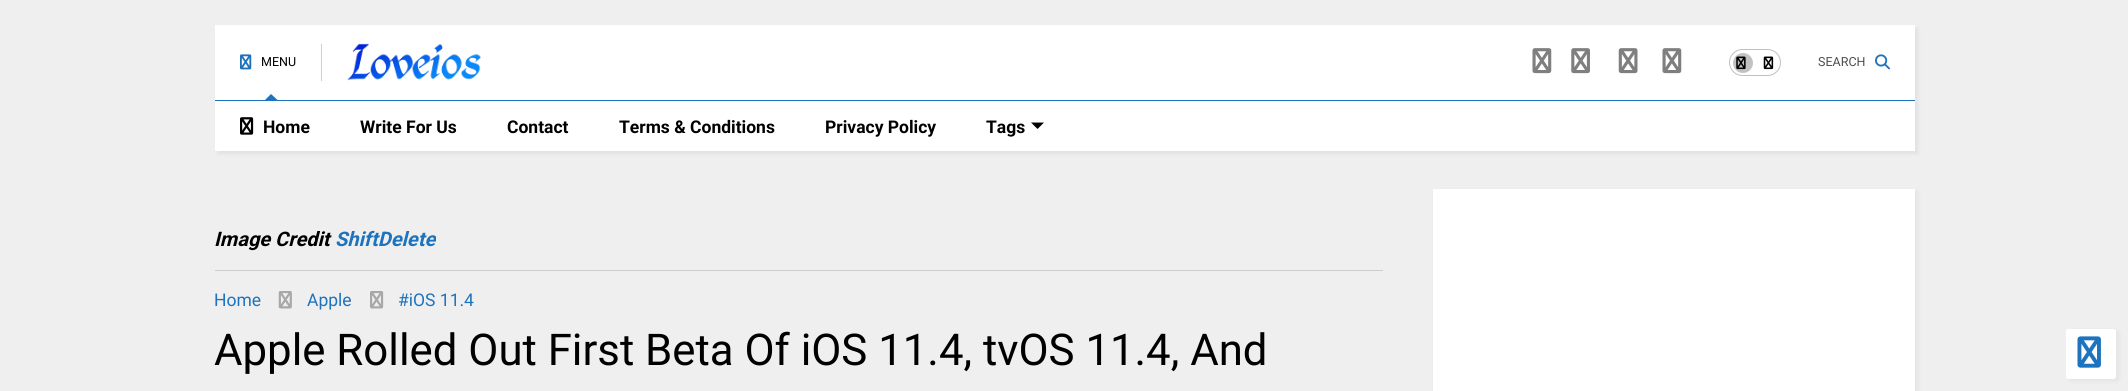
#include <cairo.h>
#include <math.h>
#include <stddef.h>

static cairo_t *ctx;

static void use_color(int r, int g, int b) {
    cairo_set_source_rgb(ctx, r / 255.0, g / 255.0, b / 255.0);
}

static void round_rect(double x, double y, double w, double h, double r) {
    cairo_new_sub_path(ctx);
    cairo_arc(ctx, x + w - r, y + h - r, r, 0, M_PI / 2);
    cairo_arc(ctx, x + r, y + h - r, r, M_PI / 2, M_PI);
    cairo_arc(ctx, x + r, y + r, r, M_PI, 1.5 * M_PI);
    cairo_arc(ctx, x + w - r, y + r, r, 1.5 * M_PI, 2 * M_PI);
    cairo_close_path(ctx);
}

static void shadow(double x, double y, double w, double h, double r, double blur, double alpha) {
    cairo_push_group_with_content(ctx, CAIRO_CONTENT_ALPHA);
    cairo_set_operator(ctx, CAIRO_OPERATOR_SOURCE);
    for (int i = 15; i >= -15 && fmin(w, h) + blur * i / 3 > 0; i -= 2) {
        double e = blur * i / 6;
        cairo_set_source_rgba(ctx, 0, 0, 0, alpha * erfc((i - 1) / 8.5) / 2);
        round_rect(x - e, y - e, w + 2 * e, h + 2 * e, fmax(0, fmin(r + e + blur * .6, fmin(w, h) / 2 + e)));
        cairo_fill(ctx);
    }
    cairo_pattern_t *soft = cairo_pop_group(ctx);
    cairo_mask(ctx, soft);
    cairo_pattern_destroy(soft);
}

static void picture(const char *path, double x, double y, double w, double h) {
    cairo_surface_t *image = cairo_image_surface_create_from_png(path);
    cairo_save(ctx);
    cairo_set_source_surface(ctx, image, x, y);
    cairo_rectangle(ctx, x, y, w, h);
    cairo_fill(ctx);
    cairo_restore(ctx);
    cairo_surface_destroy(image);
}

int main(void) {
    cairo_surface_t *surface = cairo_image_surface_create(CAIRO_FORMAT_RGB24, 2128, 391);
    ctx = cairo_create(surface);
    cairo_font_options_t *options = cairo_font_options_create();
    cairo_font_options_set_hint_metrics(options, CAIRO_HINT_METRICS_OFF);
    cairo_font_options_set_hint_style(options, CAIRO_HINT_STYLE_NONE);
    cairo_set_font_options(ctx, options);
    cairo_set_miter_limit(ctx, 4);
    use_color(239, 239, 239);
    cairo_paint(ctx);
    use_color(120, 120, 120);
    shadow(218, 28, 1700, 126, 0, 2, 0.12);
    use_color(255, 255, 255);
    cairo_rectangle(ctx, 215, 25, 1700, 126);
    cairo_fill(ctx);
    picture("img1.png", 240, 54, 12, 16);
    cairo_select_font_face(ctx, "Roboto", CAIRO_FONT_SLANT_NORMAL, CAIRO_FONT_WEIGHT_NORMAL);
    cairo_set_font_size(ctx, 12.5);
    use_color(0, 0, 0);
    cairo_move_to(ctx, 261, 66);
    cairo_show_text(ctx, "MENU");
    use_color(30, 115, 190);
    cairo_new_path(ctx);
    cairo_move_to(ctx, 277.5, 100);
    cairo_line_to(ctx, 265, 100);
    cairo_line_to(ctx, 271, 94);
    cairo_close_path(ctx);
    cairo_fill(ctx);
    use_color(207, 207, 207);
    cairo_rectangle(ctx, 321, 44, 1, 37);
    cairo_fill(ctx);
    picture("img2.png", 347, 43, 134, 38);
    picture("img3.png", 1532, 48, 20, 26);
    picture("img4.png", 1571, 48, 19, 26);
    picture("img5.png", 1618, 48, 20, 26);
    picture("img3.png", 1662, 48, 20, 26);
    round_rect(1729.5, 49.5, 51, 26, 13);
    use_color(191, 191, 191);
    cairo_set_line_width(ctx, 1);
    cairo_stroke(ctx);
    use_color(194, 194, 194);
    cairo_arc(ctx, 1743, 63, 10, 0, 2 * M_PI);
    cairo_fill(ctx);
    picture("img6.png", 1736, 56, 10, 14);
    picture("img7.png", 1763, 56, 11, 14);
    use_color(77, 77, 77);
    cairo_move_to(ctx, 1818, 66);
    cairo_show_text(ctx, "SEARCH");
    picture("img8.png", 1875, 54, 15, 16);
    use_color(30, 115, 190);
    cairo_rectangle(ctx, 215, 100, 1700, 1);
    cairo_fill(ctx);
    picture("img9.png", 240, 117, 14, 18);
    cairo_select_font_face(ctx, "Roboto", CAIRO_FONT_SLANT_NORMAL, CAIRO_FONT_WEIGHT_BOLD);
    cairo_set_font_size(ctx, 17.5);
    use_color(0, 0, 0);
    cairo_move_to(ctx, 263, 133);
    cairo_show_text(ctx, "Home");
    cairo_move_to(ctx, 360, 133);
    cairo_show_text(ctx, "Write For Us");
    cairo_move_to(ctx, 507, 133);
    cairo_show_text(ctx, "Contact");
    cairo_move_to(ctx, 619, 133);
    cairo_show_text(ctx, "Terms & Conditions");
    cairo_move_to(ctx, 825, 133);
    cairo_show_text(ctx, "Privacy Policy");
    cairo_move_to(ctx, 986, 133);
    cairo_show_text(ctx, "Tags");
    cairo_new_path(ctx);
    cairo_move_to(ctx, 1031, 122.5);
    cairo_line_to(ctx, 1044, 122.5);
    cairo_line_to(ctx, 1037.5, 129);
    cairo_close_path(ctx);
    cairo_fill(ctx);
    use_color(204, 204, 204);
    cairo_rectangle(ctx, 215, 270, 1168, 1);
    cairo_fill(ctx);
    cairo_select_font_face(ctx, "Roboto", CAIRO_FONT_SLANT_ITALIC, CAIRO_FONT_WEIGHT_BOLD);
    cairo_set_font_size(ctx, 20);
    use_color(0, 0, 0);
    cairo_move_to(ctx, 214, 246);
    cairo_show_text(ctx, "Image Credit");
    use_color(30, 115, 190);
    cairo_move_to(ctx, 335, 246);
    cairo_show_text(ctx, "ShiftDelete");
    cairo_select_font_face(ctx, "Roboto", CAIRO_FONT_SLANT_NORMAL, CAIRO_FONT_WEIGHT_NORMAL);
    cairo_set_font_size(ctx, 17.5);
    cairo_move_to(ctx, 214, 306);
    cairo_show_text(ctx, "Home");
    picture("img10.png", 278, 291, 14, 18);
    cairo_move_to(ctx, 307, 306);
    cairo_show_text(ctx, "Apple");
    picture("img11.png", 370, 291, 14, 18);
    cairo_move_to(ctx, 398, 306);
    cairo_show_text(ctx, "#iOS 11.4");
    cairo_set_font_size(ctx, 43.75);
    use_color(0, 0, 0);
    cairo_move_to(ctx, 214, 365);
    cairo_show_text(ctx, "Apple Rolled Out First Beta Of iOS 11.4, tvOS 11.4, And");
    use_color(0, 0, 0);
    shadow(1435, 191, 483, 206, 0, 2, 0.05);
    use_color(255, 255, 255);
    cairo_rectangle(ctx, 1433, 189, 482, 202);
    cairo_fill(ctx);
    use_color(0, 0, 0);
    shadow(2069, 331, 50, 50, 2.5, 2, 0.05);
    use_color(255, 255, 255);
    round_rect(2066, 329, 50, 50, 2.5);
    cairo_fill(ctx);
    picture("img12.png", 2077, 336, 24, 32);
    cairo_surface_write_to_png(surface, "result.png");
    cairo_font_options_destroy(options);
    cairo_destroy(ctx);
    cairo_surface_destroy(surface);
    return 0;
}
